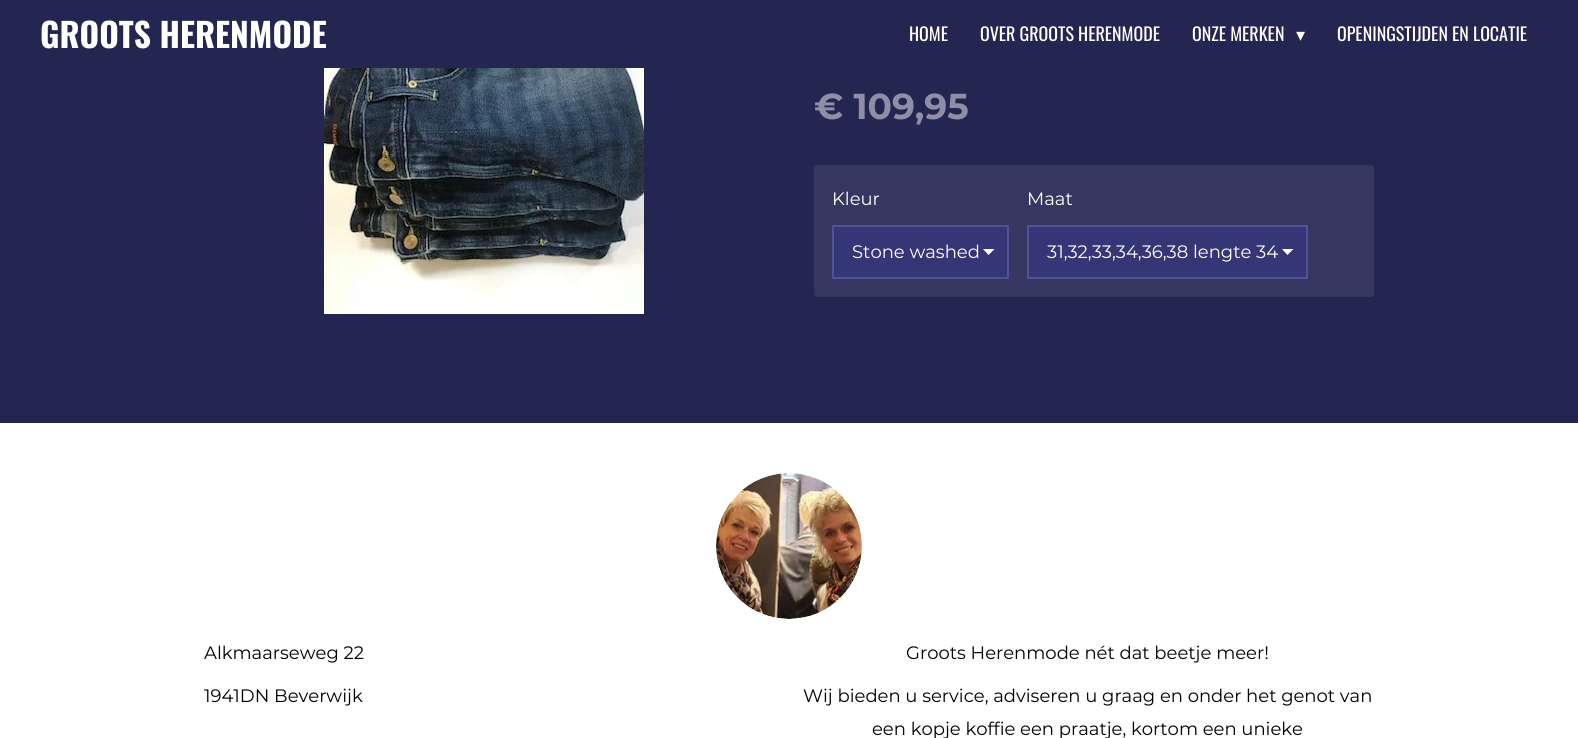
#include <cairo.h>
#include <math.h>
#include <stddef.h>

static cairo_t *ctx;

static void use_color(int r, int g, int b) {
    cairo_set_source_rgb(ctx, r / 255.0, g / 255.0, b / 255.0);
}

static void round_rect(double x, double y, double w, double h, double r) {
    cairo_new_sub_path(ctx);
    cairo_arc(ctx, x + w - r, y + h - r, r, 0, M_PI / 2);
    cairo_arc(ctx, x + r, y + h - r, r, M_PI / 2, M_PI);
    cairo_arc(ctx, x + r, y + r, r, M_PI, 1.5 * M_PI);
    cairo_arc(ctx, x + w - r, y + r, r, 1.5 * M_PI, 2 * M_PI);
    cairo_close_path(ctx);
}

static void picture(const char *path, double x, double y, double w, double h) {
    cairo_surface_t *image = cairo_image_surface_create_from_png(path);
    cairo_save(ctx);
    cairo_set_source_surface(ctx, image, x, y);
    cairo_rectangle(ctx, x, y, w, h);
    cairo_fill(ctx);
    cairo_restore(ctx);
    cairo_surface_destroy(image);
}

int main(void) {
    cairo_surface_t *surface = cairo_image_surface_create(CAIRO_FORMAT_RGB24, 1578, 738);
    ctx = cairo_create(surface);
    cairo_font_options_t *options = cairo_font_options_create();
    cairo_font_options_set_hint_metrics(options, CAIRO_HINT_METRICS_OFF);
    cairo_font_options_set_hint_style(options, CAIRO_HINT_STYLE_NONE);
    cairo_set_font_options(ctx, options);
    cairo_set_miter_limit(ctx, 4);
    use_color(36, 38, 82);
    cairo_paint(ctx);
    cairo_select_font_face(ctx, "Oswald", CAIRO_FONT_SLANT_NORMAL, CAIRO_FONT_WEIGHT_BOLD);
    cairo_set_font_size(ctx, 33.5);
    use_color(255, 255, 255);
    cairo_move_to(ctx, 40, 48);
    cairo_show_text(ctx, "GROOTS HERENMODE");
    cairo_select_font_face(ctx, "Oswald", CAIRO_FONT_SLANT_NORMAL, CAIRO_FONT_WEIGHT_NORMAL);
    cairo_set_font_size(ctx, 18);
    cairo_move_to(ctx, 909, 41);
    cairo_show_text(ctx, "HOME");
    cairo_move_to(ctx, 980, 41);
    cairo_show_text(ctx, "OVER GROOTS HERENMODE");
    cairo_move_to(ctx, 1192, 41);
    cairo_show_text(ctx, "ONZE MERKEN");
    cairo_select_font_face(ctx, "DejaVu Sans", CAIRO_FONT_SLANT_NORMAL, CAIRO_FONT_WEIGHT_NORMAL);
    cairo_move_to(ctx, 1296, 41);
    cairo_show_text(ctx, "▾");
    cairo_select_font_face(ctx, "Oswald", CAIRO_FONT_SLANT_NORMAL, CAIRO_FONT_WEIGHT_NORMAL);
    cairo_move_to(ctx, 1337, 41);
    cairo_show_text(ctx, "OPENINGSTIJDEN EN LOCATIE");
    picture("img1.png", 324, 68, 320, 246);
    cairo_select_font_face(ctx, "Montserrat", CAIRO_FONT_SLANT_NORMAL, CAIRO_FONT_WEIGHT_BOLD);
    cairo_set_font_size(ctx, 36);
    use_color(142, 143, 166);
    cairo_move_to(ctx, 814, 119);
    cairo_show_text(ctx, "€ 109,95");
    use_color(54, 55, 96);
    round_rect(814, 165, 560, 132, 4);
    cairo_fill(ctx);
    cairo_select_font_face(ctx, "Montserrat", CAIRO_FONT_SLANT_NORMAL, CAIRO_FONT_WEIGHT_NORMAL);
    cairo_set_font_size(ctx, 18);
    use_color(255, 255, 255);
    cairo_move_to(ctx, 832, 205);
    cairo_show_text(ctx, "Kleur");
    use_color(52, 54, 117);
    cairo_rectangle(ctx, 834, 227, 173, 50);
    cairo_fill(ctx);
    use_color(255, 255, 255);
    cairo_new_path(ctx);
    cairo_move_to(ctx, 988.5, 255);
    cairo_line_to(ctx, 983, 249);
    cairo_line_to(ctx, 994.5, 249);
    cairo_close_path(ctx);
    cairo_fill(ctx);
    cairo_rectangle(ctx, 833, 226, 175, 52);
    use_color(80, 82, 154);
    cairo_stroke(ctx);
    use_color(255, 255, 255);
    cairo_move_to(ctx, 852, 258);
    cairo_show_text(ctx, "Stone washed");
    cairo_move_to(ctx, 1027, 205);
    cairo_show_text(ctx, "Maat");
    use_color(52, 54, 117);
    cairo_rectangle(ctx, 1029, 227, 277, 50);
    cairo_fill(ctx);
    use_color(255, 255, 255);
    cairo_new_path(ctx);
    cairo_move_to(ctx, 1287.5, 255);
    cairo_line_to(ctx, 1282, 249);
    cairo_line_to(ctx, 1293.5, 249);
    cairo_close_path(ctx);
    cairo_fill(ctx);
    cairo_rectangle(ctx, 1028, 226, 279, 52);
    use_color(80, 82, 154);
    cairo_stroke(ctx);
    use_color(255, 255, 255);
    cairo_move_to(ctx, 1047, 258);
    cairo_show_text(ctx, "31,32,33,34,36,38 lengte 34");
    cairo_rectangle(ctx, 0, 423, 1578, 315);
    cairo_fill(ctx);
    picture("img2.png", 716, 473, 146, 146);
    use_color(0, 0, 0);
    cairo_move_to(ctx, 204, 659);
    cairo_show_text(ctx, "Alkmaarseweg 22");
    cairo_move_to(ctx, 204, 702);
    cairo_show_text(ctx, "1941DN Beverwijk");
    cairo_move_to(ctx, 906, 659);
    cairo_show_text(ctx, "Groots Herenmode nét dat beetje meer!");
    cairo_move_to(ctx, 803, 702);
    cairo_show_text(ctx, "Wij bieden u service, adviseren u graag en onder het genot van");
    cairo_move_to(ctx, 872, 735);
    cairo_show_text(ctx, "een kopje koffie een praatje, kortom een unieke");
    cairo_surface_write_to_png(surface, "result.png");
    cairo_font_options_destroy(options);
    cairo_destroy(ctx);
    cairo_surface_destroy(surface);
    return 0;
}
